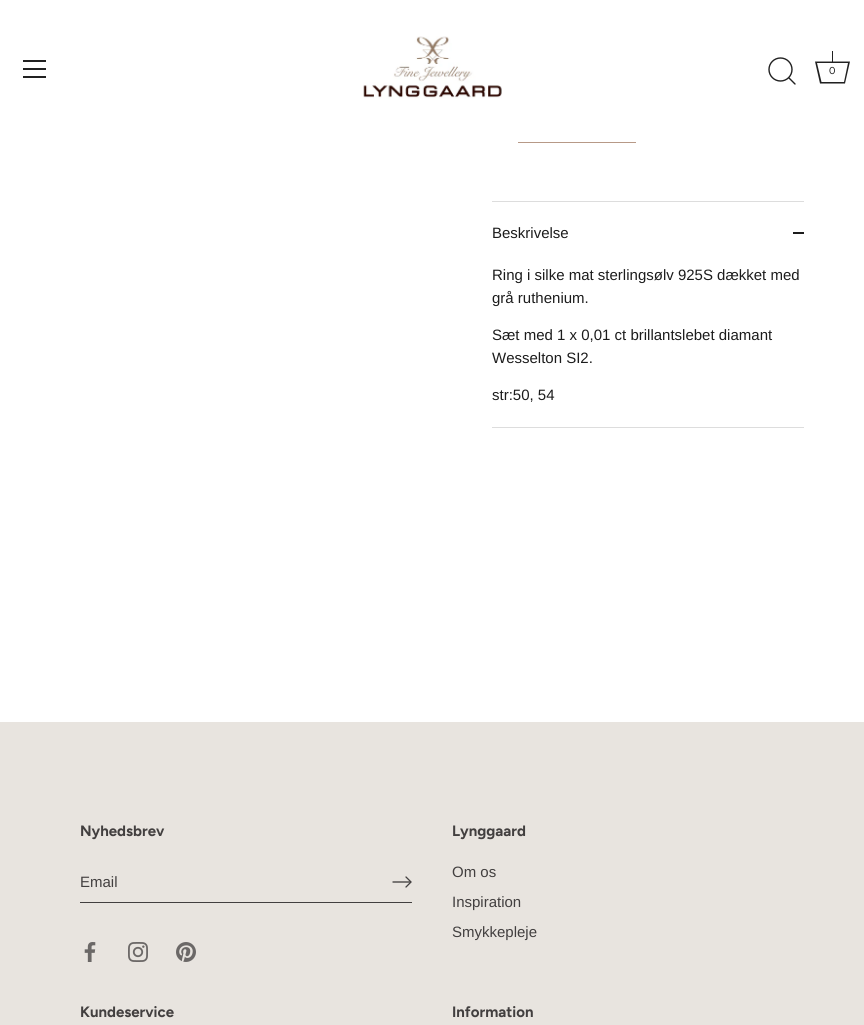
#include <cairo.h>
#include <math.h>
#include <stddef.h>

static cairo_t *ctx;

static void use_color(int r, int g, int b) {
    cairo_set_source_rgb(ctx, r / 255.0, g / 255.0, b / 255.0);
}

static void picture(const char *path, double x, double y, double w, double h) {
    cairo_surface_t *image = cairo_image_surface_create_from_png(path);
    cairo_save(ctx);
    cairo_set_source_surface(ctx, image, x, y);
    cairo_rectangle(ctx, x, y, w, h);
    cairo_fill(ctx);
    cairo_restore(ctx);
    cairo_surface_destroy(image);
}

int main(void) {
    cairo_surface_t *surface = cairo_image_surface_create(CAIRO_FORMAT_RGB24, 864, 1025);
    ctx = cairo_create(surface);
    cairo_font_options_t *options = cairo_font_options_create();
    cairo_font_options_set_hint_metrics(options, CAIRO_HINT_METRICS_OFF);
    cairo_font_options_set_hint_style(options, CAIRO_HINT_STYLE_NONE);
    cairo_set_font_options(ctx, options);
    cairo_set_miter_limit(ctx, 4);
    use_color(255, 255, 255);
    cairo_paint(ctx);
    use_color(33, 33, 33);
    cairo_rectangle(ctx, 23, 60, 23, 2);
    cairo_fill(ctx);
    cairo_rectangle(ctx, 23, 68, 23, 2);
    cairo_fill(ctx);
    cairo_rectangle(ctx, 23, 76, 23, 2);
    cairo_fill(ctx);
    picture("img1.png", 363, 36, 139, 63);
    cairo_arc(ctx, 780.5, 69.5, 11.5, 0, 2 * M_PI);
    cairo_set_line_width(ctx, 1.4);
    cairo_stroke(ctx);
    cairo_new_path(ctx);
    cairo_move_to(ctx, 795, 84);
    cairo_line_to(ctx, 789, 78);
    cairo_set_line_cap(ctx, CAIRO_LINE_CAP_ROUND);
    cairo_set_line_join(ctx, CAIRO_LINE_JOIN_ROUND);
    cairo_stroke(ctx);
    cairo_new_path(ctx);
    cairo_move_to(ctx, 848, 63);
    cairo_line_to(ctx, 844, 82);
    cairo_line_to(ctx, 821.5, 82);
    cairo_line_to(ctx, 817, 63);
    cairo_line_to(ctx, 848, 63);
    cairo_move_to(ctx, 850, 61.5);
    cairo_line_to(ctx, 815, 61.5);
    cairo_line_to(ctx, 820, 83.5);
    cairo_line_to(ctx, 845, 83.5);
    cairo_close_path(ctx);
    cairo_fill(ctx);
    cairo_rectangle(ctx, 832, 51, 1, 11);
    cairo_fill(ctx);
    cairo_select_font_face(ctx, "Figtree", CAIRO_FONT_SLANT_NORMAL, CAIRO_FONT_WEIGHT_NORMAL);
    cairo_set_font_size(ctx, 10);
    use_color(28, 28, 28);
    cairo_move_to(ctx, 829, 74);
    cairo_show_text(ctx, "0");
    use_color(183, 153, 135);
    cairo_rectangle(ctx, 518, 142, 118, 1);
    cairo_fill(ctx);
    use_color(221, 221, 221);
    cairo_rectangle(ctx, 492, 201, 312, 1);
    cairo_fill(ctx);
    cairo_rectangle(ctx, 492, 427, 312, 1);
    cairo_fill(ctx);
    cairo_select_font_face(ctx, "Liberation Sans", CAIRO_FONT_SLANT_NORMAL, CAIRO_FONT_WEIGHT_NORMAL);
    cairo_set_font_size(ctx, 15);
    use_color(28, 28, 28);
    cairo_move_to(ctx, 492, 238);
    cairo_show_text(ctx, "Beskrivelse");
    cairo_rectangle(ctx, 793, 232, 11, 2);
    cairo_fill(ctx);
    cairo_move_to(ctx, 492, 280);
    cairo_show_text(ctx, "Ring i silke mat sterlingsølv 925S dækket med");
    cairo_move_to(ctx, 492, 303);
    cairo_show_text(ctx, "grå ruthenium.");
    cairo_move_to(ctx, 492, 340);
    cairo_show_text(ctx, "Sæt med 1 x 0,01 ct brillantslebet diamant");
    cairo_move_to(ctx, 492, 363);
    cairo_show_text(ctx, "Wesselton SI2.");
    cairo_move_to(ctx, 492, 400);
    cairo_show_text(ctx, "str:50, 54");
    use_color(232, 228, 223);
    cairo_rectangle(ctx, 0, 722, 864, 303);
    cairo_fill(ctx);
    cairo_select_font_face(ctx, "Figtree", CAIRO_FONT_SLANT_NORMAL, CAIRO_FONT_WEIGHT_BOLD);
    use_color(66, 63, 63);
    cairo_move_to(ctx, 80, 836);
    cairo_show_text(ctx, "Nyhedsbrev");
    cairo_rectangle(ctx, 80, 902, 332, 1);
    cairo_fill(ctx);
    cairo_select_font_face(ctx, "Liberation Sans", CAIRO_FONT_SLANT_NORMAL, CAIRO_FONT_WEIGHT_NORMAL);
    cairo_move_to(ctx, 80, 887);
    cairo_show_text(ctx, "Email");
    cairo_new_path(ctx);
    cairo_move_to(ctx, 406, 887);
    cairo_line_to(ctx, 411, 882);
    cairo_line_to(ctx, 406, 877);
    cairo_set_line_width(ctx, 1.3);
    cairo_set_line_join(ctx, CAIRO_LINE_JOIN_MITER);
    cairo_stroke(ctx);
    cairo_new_path(ctx);
    cairo_move_to(ctx, 410, 882);
    cairo_line_to(ctx, 393, 882);
    cairo_set_line_join(ctx, CAIRO_LINE_JOIN_ROUND);
    cairo_stroke(ctx);
    picture("img2.png", 84, 942, 12, 20);
    picture("img3.png", 128, 942, 20, 20);
    picture("img4.png", 176, 942, 20, 20);
    cairo_select_font_face(ctx, "Figtree", CAIRO_FONT_SLANT_NORMAL, CAIRO_FONT_WEIGHT_BOLD);
    cairo_move_to(ctx, 452, 836);
    cairo_show_text(ctx, "Lynggaard");
    cairo_select_font_face(ctx, "Liberation Sans", CAIRO_FONT_SLANT_NORMAL, CAIRO_FONT_WEIGHT_NORMAL);
    cairo_move_to(ctx, 452, 877);
    cairo_show_text(ctx, "Om os");
    cairo_move_to(ctx, 452, 907);
    cairo_show_text(ctx, "Inspiration");
    cairo_move_to(ctx, 452, 937);
    cairo_show_text(ctx, "Smykkepleje");
    cairo_select_font_face(ctx, "Figtree", CAIRO_FONT_SLANT_NORMAL, CAIRO_FONT_WEIGHT_BOLD);
    cairo_move_to(ctx, 80, 1017);
    cairo_show_text(ctx, "Kundeservice");
    cairo_move_to(ctx, 452, 1017);
    cairo_show_text(ctx, "Information");
    cairo_surface_write_to_png(surface, "result.png");
    cairo_font_options_destroy(options);
    cairo_destroy(ctx);
    cairo_surface_destroy(surface);
    return 0;
}
